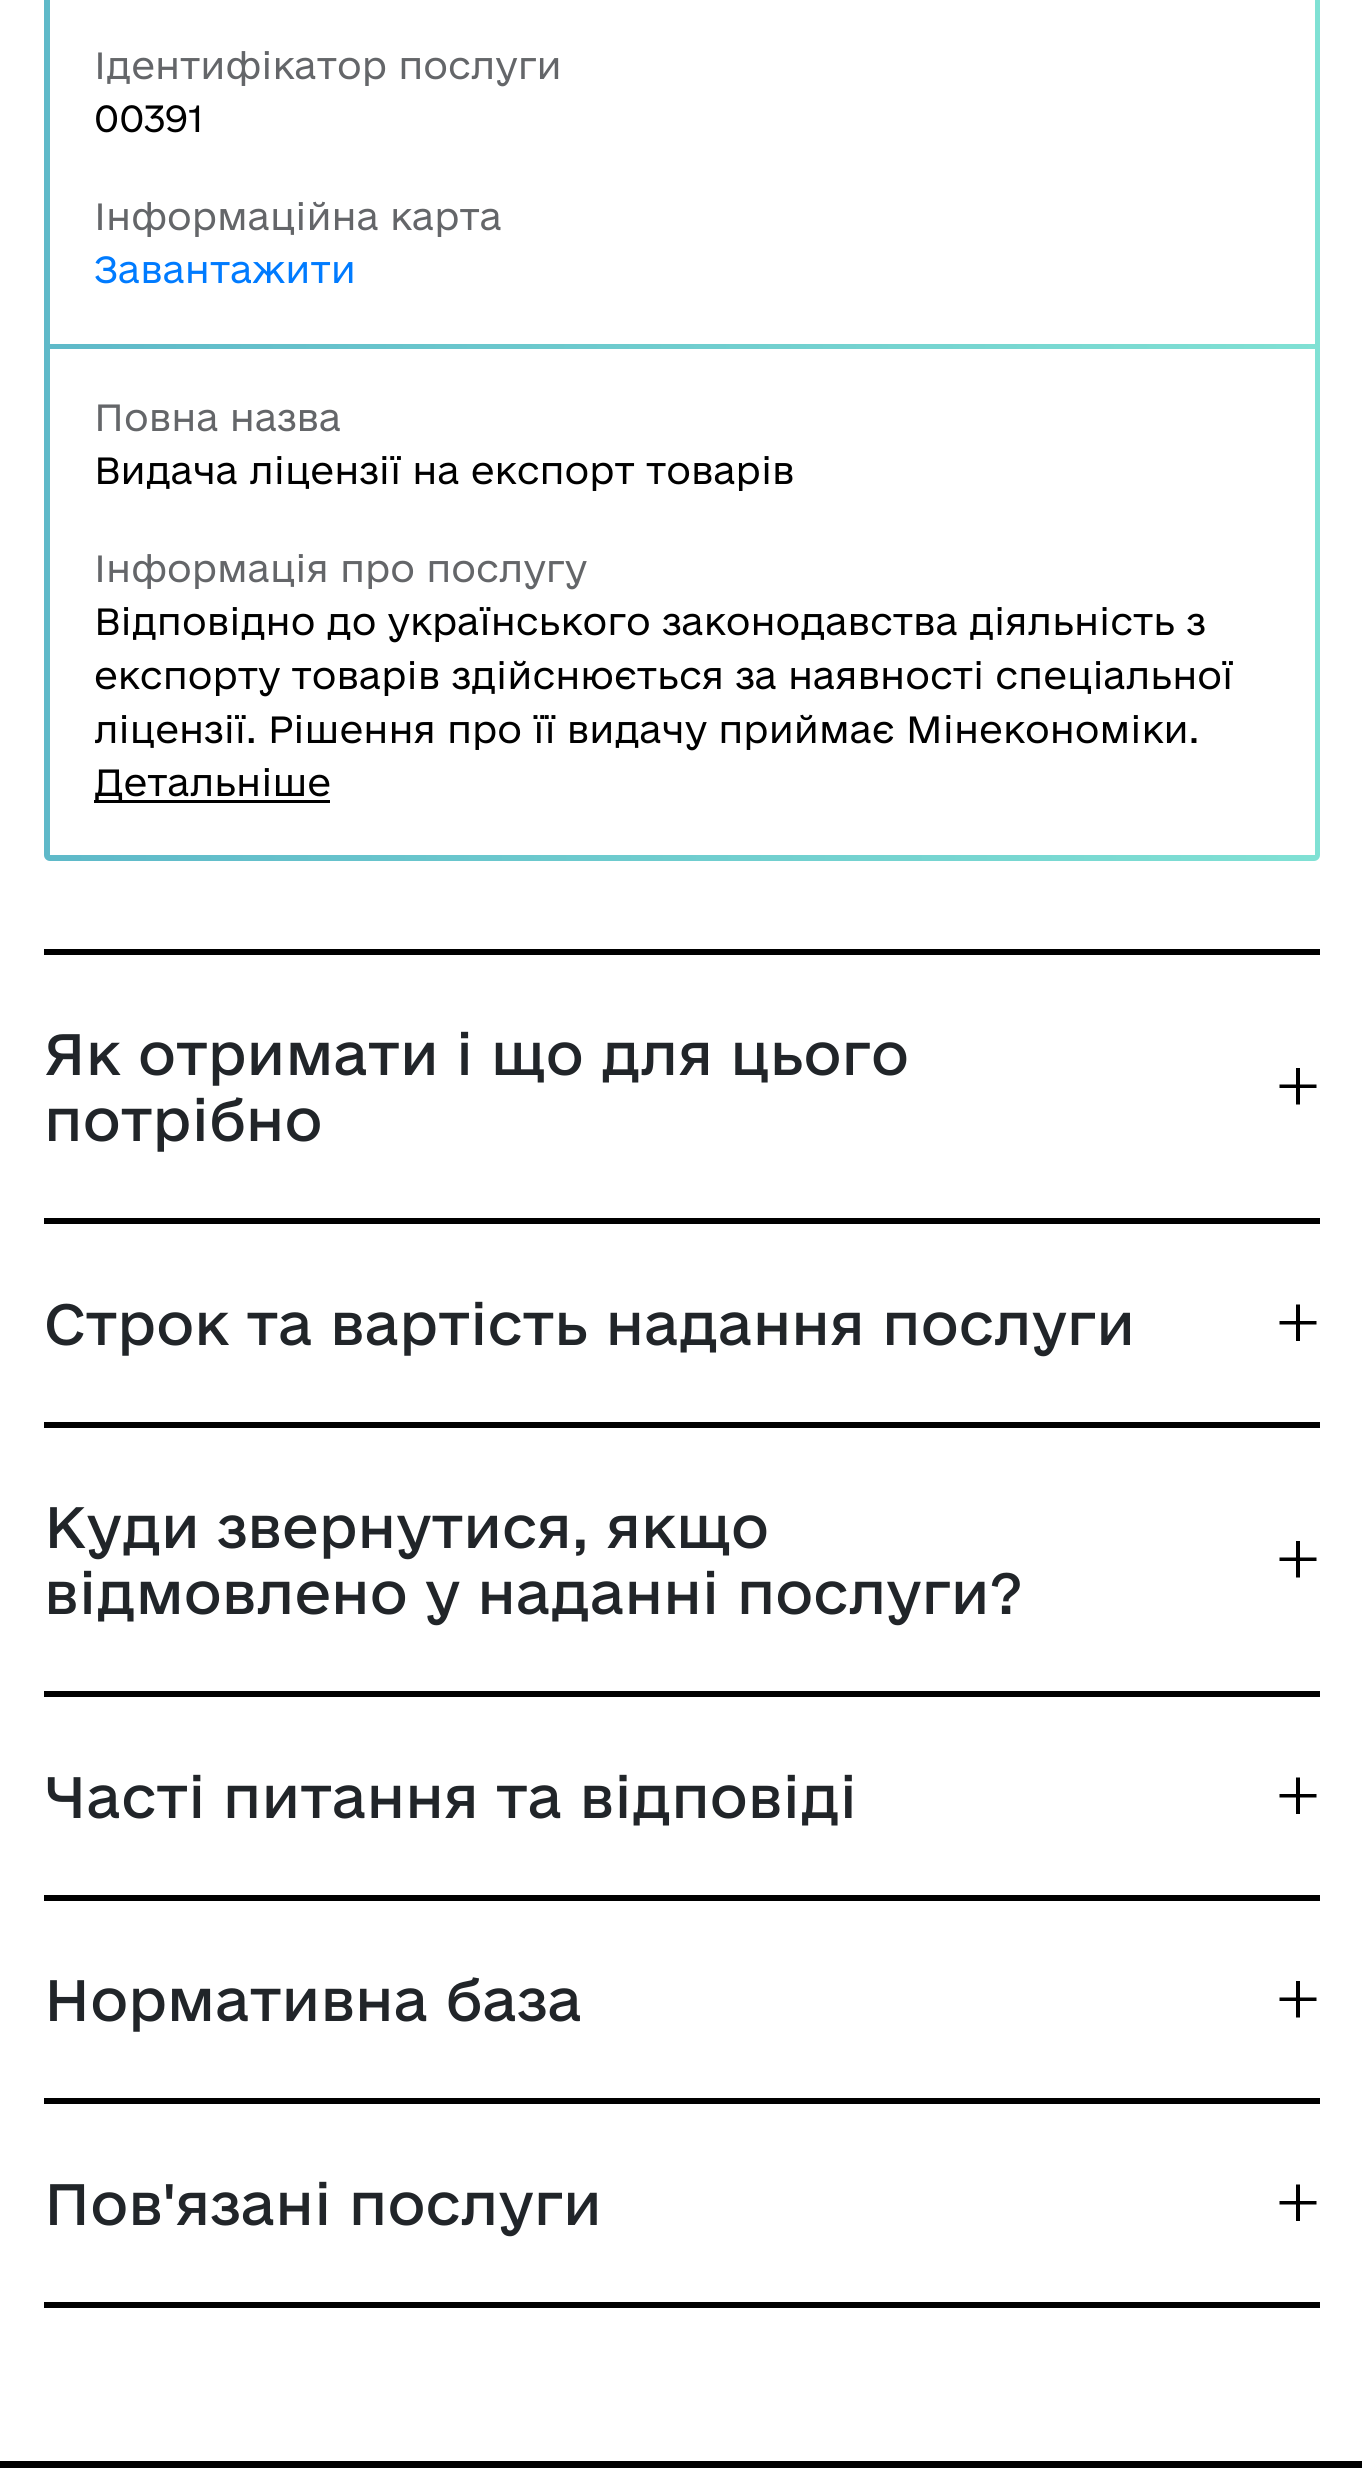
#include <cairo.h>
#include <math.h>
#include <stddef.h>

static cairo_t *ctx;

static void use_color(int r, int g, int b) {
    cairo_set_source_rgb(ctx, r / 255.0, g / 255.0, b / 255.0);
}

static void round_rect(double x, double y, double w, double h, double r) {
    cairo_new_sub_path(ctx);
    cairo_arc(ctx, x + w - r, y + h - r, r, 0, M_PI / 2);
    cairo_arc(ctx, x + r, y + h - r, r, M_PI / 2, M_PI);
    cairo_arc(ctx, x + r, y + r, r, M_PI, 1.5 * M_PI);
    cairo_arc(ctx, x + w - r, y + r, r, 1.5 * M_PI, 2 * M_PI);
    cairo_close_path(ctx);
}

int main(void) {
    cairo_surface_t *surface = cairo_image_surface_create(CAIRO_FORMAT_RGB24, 1362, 2468);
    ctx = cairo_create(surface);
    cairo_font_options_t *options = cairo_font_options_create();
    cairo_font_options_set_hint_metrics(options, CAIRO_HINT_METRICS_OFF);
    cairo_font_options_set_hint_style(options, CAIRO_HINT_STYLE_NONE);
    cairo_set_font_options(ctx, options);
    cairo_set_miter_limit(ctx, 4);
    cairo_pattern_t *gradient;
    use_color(255, 255, 255);
    cairo_paint(ctx);
    gradient = cairo_pattern_create_linear(27, 429, 1322, 424);
    cairo_pattern_add_color_stop_rgba(gradient, 0, 0.369, 0.725, 0.788, 1);
    cairo_pattern_add_color_stop_rgba(gradient, 1, 0.502, 0.882, 0.831, 1);
    cairo_set_source(ctx, gradient);
    cairo_pattern_destroy(gradient);
    round_rect(44, -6, 1276, 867, 6);
    cairo_fill(ctx);
    use_color(255, 255, 255);
    cairo_rectangle(ctx, 50, 0, 1265, 344);
    cairo_fill(ctx);
    cairo_select_font_face(ctx, "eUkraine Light", CAIRO_FONT_SLANT_NORMAL, CAIRO_FONT_WEIGHT_NORMAL);
    cairo_set_font_size(ctx, 35.75);
    use_color(100, 102, 105);
    cairo_move_to(ctx, 94, 79);
    cairo_show_text(ctx, "Ідентифікатор послуги");
    use_color(0, 0, 0);
    cairo_move_to(ctx, 94, 132);
    cairo_show_text(ctx, "00391");
    use_color(100, 102, 105);
    cairo_move_to(ctx, 94, 230);
    cairo_show_text(ctx, "Інформаційна карта");
    use_color(0, 123, 255);
    cairo_move_to(ctx, 94, 283);
    cairo_show_text(ctx, "Завантажити");
    use_color(255, 255, 255);
    cairo_rectangle(ctx, 50, 349, 1265, 506);
    cairo_fill(ctx);
    use_color(100, 102, 105);
    cairo_move_to(ctx, 94, 431);
    cairo_show_text(ctx, "Повна назва");
    use_color(0, 0, 0);
    cairo_move_to(ctx, 94, 484);
    cairo_show_text(ctx, "Видача ліцензії на експорт товарів");
    use_color(100, 102, 105);
    cairo_move_to(ctx, 94, 582);
    cairo_show_text(ctx, "Інформація про послугу");
    use_color(0, 0, 0);
    cairo_move_to(ctx, 94, 635);
    cairo_show_text(ctx, "Відповідно до українського законодавства діяльність з");
    cairo_move_to(ctx, 94, 689);
    cairo_show_text(ctx, "експорту товарів здійснюється за наявності спеціальної");
    cairo_move_to(ctx, 94, 743);
    cairo_show_text(ctx, "ліцензії. Рішення про її видачу приймає Мінекономіки.");
    cairo_rectangle(ctx, 94, 800, 236, 3);
    cairo_fill(ctx);
    cairo_move_to(ctx, 94, 796);
    cairo_show_text(ctx, "Детальніше");
    cairo_rectangle(ctx, 44, 949, 1276, 6);
    cairo_fill(ctx);
    cairo_rectangle(ctx, 44, 1218, 1276, 6);
    cairo_fill(ctx);
    cairo_select_font_face(ctx, "eUkraine", CAIRO_FONT_SLANT_NORMAL, CAIRO_FONT_WEIGHT_NORMAL);
    cairo_set_font_size(ctx, 55);
    use_color(33, 37, 41);
    cairo_move_to(ctx, 44, 1075);
    cairo_show_text(ctx, "Як отримати і що для цього");
    cairo_move_to(ctx, 44, 1141);
    cairo_show_text(ctx, "потрібно");
    use_color(0, 0, 0);
    cairo_set_fill_rule(ctx, CAIRO_FILL_RULE_EVEN_ODD);
    cairo_new_path(ctx);
    cairo_move_to(ctx, 1300, 1068);
    cairo_line_to(ctx, 1296, 1068);
    cairo_line_to(ctx, 1296, 1084.5);
    cairo_line_to(ctx, 1279.5, 1084.5);
    cairo_line_to(ctx, 1279.5, 1088);
    cairo_line_to(ctx, 1296, 1088);
    cairo_line_to(ctx, 1296, 1104.5);
    cairo_line_to(ctx, 1300, 1104.5);
    cairo_line_to(ctx, 1300, 1088);
    cairo_line_to(ctx, 1316.5, 1088);
    cairo_line_to(ctx, 1316.5, 1084.5);
    cairo_line_to(ctx, 1300, 1084.5);
    cairo_close_path(ctx);
    cairo_fill(ctx);
    cairo_rectangle(ctx, 44, 1422, 1276, 6);
    cairo_fill(ctx);
    use_color(33, 37, 41);
    cairo_move_to(ctx, 44, 1345);
    cairo_show_text(ctx, "Строк та вартість надання послуги");
    use_color(0, 0, 0);
    cairo_new_path(ctx);
    cairo_move_to(ctx, 1300, 1304.5);
    cairo_line_to(ctx, 1296, 1304.5);
    cairo_line_to(ctx, 1296, 1321);
    cairo_line_to(ctx, 1279.5, 1321);
    cairo_line_to(ctx, 1279.5, 1324.5);
    cairo_line_to(ctx, 1296, 1324.5);
    cairo_line_to(ctx, 1296, 1341);
    cairo_line_to(ctx, 1300, 1341);
    cairo_line_to(ctx, 1300, 1324.5);
    cairo_line_to(ctx, 1316.5, 1324.5);
    cairo_line_to(ctx, 1316.5, 1321);
    cairo_line_to(ctx, 1300, 1321);
    cairo_close_path(ctx);
    cairo_fill(ctx);
    cairo_rectangle(ctx, 44, 1691, 1276, 6);
    cairo_fill(ctx);
    use_color(33, 37, 41);
    cairo_move_to(ctx, 44, 1548);
    cairo_show_text(ctx, "Куди звернутися, якщо");
    cairo_move_to(ctx, 44, 1614);
    cairo_show_text(ctx, "відмовлено у наданні послуги?");
    use_color(0, 0, 0);
    cairo_new_path(ctx);
    cairo_move_to(ctx, 1300, 1541);
    cairo_line_to(ctx, 1296, 1541);
    cairo_line_to(ctx, 1296, 1557.5);
    cairo_line_to(ctx, 1279.5, 1557.5);
    cairo_line_to(ctx, 1279.5, 1561);
    cairo_line_to(ctx, 1296, 1561);
    cairo_line_to(ctx, 1296, 1577.5);
    cairo_line_to(ctx, 1300, 1577.5);
    cairo_line_to(ctx, 1300, 1561);
    cairo_line_to(ctx, 1316.5, 1561);
    cairo_line_to(ctx, 1316.5, 1557.5);
    cairo_line_to(ctx, 1300, 1557.5);
    cairo_close_path(ctx);
    cairo_fill(ctx);
    cairo_rectangle(ctx, 44, 1895, 1276, 6);
    cairo_fill(ctx);
    use_color(33, 37, 41);
    cairo_move_to(ctx, 44, 1818);
    cairo_show_text(ctx, "Часті питання та відповіді");
    use_color(0, 0, 0);
    cairo_new_path(ctx);
    cairo_move_to(ctx, 1300, 1777.5);
    cairo_line_to(ctx, 1296, 1777.5);
    cairo_line_to(ctx, 1296, 1794);
    cairo_line_to(ctx, 1279.5, 1794);
    cairo_line_to(ctx, 1279.5, 1797.5);
    cairo_line_to(ctx, 1296, 1797.5);
    cairo_line_to(ctx, 1296, 1814);
    cairo_line_to(ctx, 1300, 1814);
    cairo_line_to(ctx, 1300, 1797.5);
    cairo_line_to(ctx, 1316.5, 1797.5);
    cairo_line_to(ctx, 1316.5, 1794);
    cairo_line_to(ctx, 1300, 1794);
    cairo_close_path(ctx);
    cairo_fill(ctx);
    cairo_rectangle(ctx, 44, 2098, 1276, 6);
    cairo_fill(ctx);
    use_color(33, 37, 41);
    cairo_move_to(ctx, 44, 2021);
    cairo_show_text(ctx, "Нормативна база");
    use_color(0, 0, 0);
    cairo_new_path(ctx);
    cairo_move_to(ctx, 1300, 1981);
    cairo_line_to(ctx, 1296, 1981);
    cairo_line_to(ctx, 1296, 1997.5);
    cairo_line_to(ctx, 1279.5, 1997.5);
    cairo_line_to(ctx, 1279.5, 2001);
    cairo_line_to(ctx, 1296, 2001);
    cairo_line_to(ctx, 1296, 2017.5);
    cairo_line_to(ctx, 1300, 2017.5);
    cairo_line_to(ctx, 1300, 2001);
    cairo_line_to(ctx, 1316.5, 2001);
    cairo_line_to(ctx, 1316.5, 1997.5);
    cairo_line_to(ctx, 1300, 1997.5);
    cairo_close_path(ctx);
    cairo_fill(ctx);
    cairo_rectangle(ctx, 44, 2302, 1276, 6);
    cairo_fill(ctx);
    use_color(33, 37, 41);
    cairo_move_to(ctx, 44, 2225);
    cairo_show_text(ctx, "Пов'язані послуги");
    use_color(0, 0, 0);
    cairo_new_path(ctx);
    cairo_move_to(ctx, 1300, 2184.5);
    cairo_line_to(ctx, 1296, 2184.5);
    cairo_line_to(ctx, 1296, 2201);
    cairo_line_to(ctx, 1279.5, 2201);
    cairo_line_to(ctx, 1279.5, 2204.5);
    cairo_line_to(ctx, 1296, 2204.5);
    cairo_line_to(ctx, 1296, 2221);
    cairo_line_to(ctx, 1300, 2221);
    cairo_line_to(ctx, 1300, 2204.5);
    cairo_line_to(ctx, 1316.5, 2204.5);
    cairo_line_to(ctx, 1316.5, 2201);
    cairo_line_to(ctx, 1300, 2201);
    cairo_close_path(ctx);
    cairo_fill(ctx);
    cairo_rectangle(ctx, 0, 2461, 1362, 7);
    cairo_fill(ctx);
    cairo_surface_write_to_png(surface, "result.png");
    cairo_font_options_destroy(options);
    cairo_destroy(ctx);
    cairo_surface_destroy(surface);
    return 0;
}
